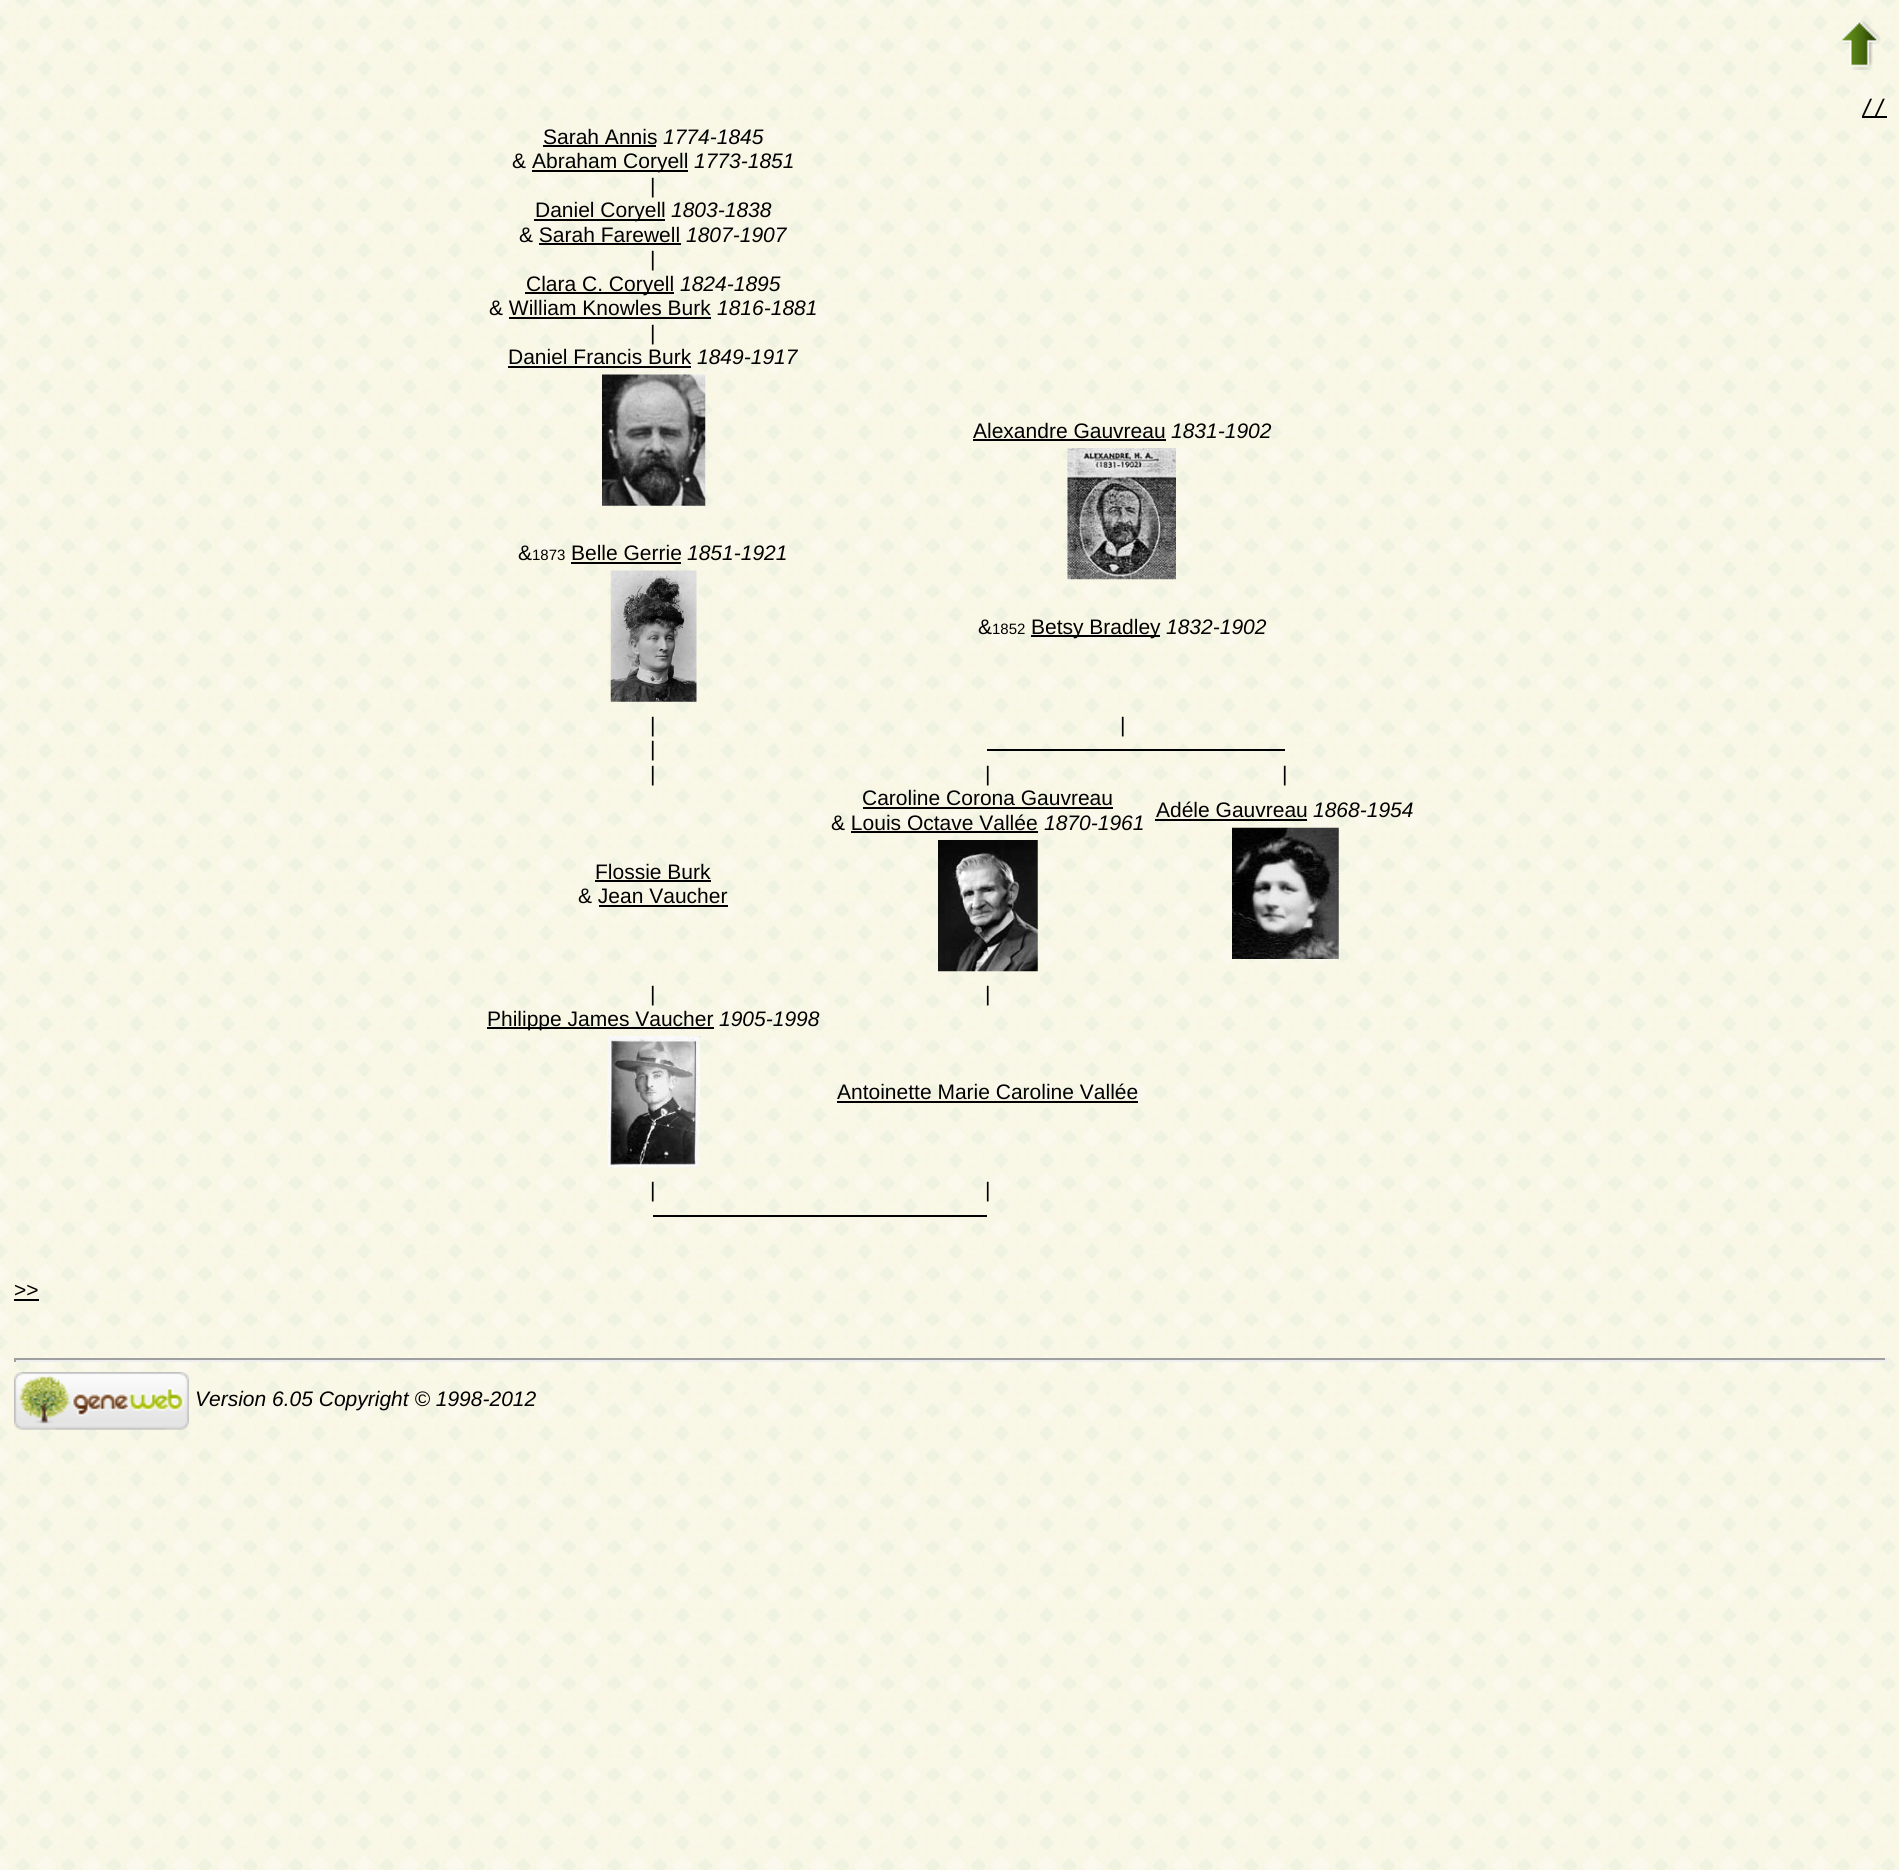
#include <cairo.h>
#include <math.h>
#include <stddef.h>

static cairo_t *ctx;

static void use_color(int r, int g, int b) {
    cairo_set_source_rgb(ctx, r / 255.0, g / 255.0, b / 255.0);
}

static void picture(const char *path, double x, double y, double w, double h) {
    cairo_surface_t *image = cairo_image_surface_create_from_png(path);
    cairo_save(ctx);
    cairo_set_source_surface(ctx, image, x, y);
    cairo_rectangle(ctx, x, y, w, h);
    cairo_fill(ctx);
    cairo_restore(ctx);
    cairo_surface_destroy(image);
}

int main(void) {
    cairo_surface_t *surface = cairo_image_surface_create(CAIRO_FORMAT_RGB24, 1899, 1870);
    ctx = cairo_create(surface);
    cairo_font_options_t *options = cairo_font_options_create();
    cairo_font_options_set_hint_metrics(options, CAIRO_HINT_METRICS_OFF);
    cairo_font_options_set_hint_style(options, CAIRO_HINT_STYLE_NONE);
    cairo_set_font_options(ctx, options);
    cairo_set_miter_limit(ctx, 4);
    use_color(255, 255, 255);
    cairo_paint(ctx);
    picture("img1.png", 0, 0, 1899, 1870);
    picture("img2.png", 1842, 20, 39, 50);
    cairo_select_font_face(ctx, "DejaVu Sans Mono", CAIRO_FONT_SLANT_NORMAL, CAIRO_FONT_WEIGHT_NORMAL);
    cairo_set_font_size(ctx, 21);
    use_color(0, 0, 0);
    cairo_move_to(ctx, 1861, 114);
    cairo_show_text(ctx, "//");
    cairo_rectangle(ctx, 1862, 116, 25, 2);
    cairo_fill(ctx);
    cairo_select_font_face(ctx, "Liberation Sans", CAIRO_FONT_SLANT_NORMAL, CAIRO_FONT_WEIGHT_NORMAL);
    cairo_move_to(ctx, 543, 144);
    cairo_show_text(ctx, "Sarah Annis");
    cairo_rectangle(ctx, 543, 145, 113, 2);
    cairo_fill(ctx);
    cairo_select_font_face(ctx, "Liberation Sans", CAIRO_FONT_SLANT_ITALIC, CAIRO_FONT_WEIGHT_NORMAL);
    cairo_move_to(ctx, 663, 144);
    cairo_show_text(ctx, "1774-1845");
    cairo_select_font_face(ctx, "Liberation Sans", CAIRO_FONT_SLANT_NORMAL, CAIRO_FONT_WEIGHT_NORMAL);
    cairo_move_to(ctx, 512, 168);
    cairo_show_text(ctx, "&");
    cairo_rectangle(ctx, 532, 170, 156, 2);
    cairo_fill(ctx);
    cairo_move_to(ctx, 532, 168);
    cairo_show_text(ctx, "Abraham Coryell");
    cairo_select_font_face(ctx, "Liberation Sans", CAIRO_FONT_SLANT_ITALIC, CAIRO_FONT_WEIGHT_NORMAL);
    cairo_move_to(ctx, 694, 168);
    cairo_show_text(ctx, "1773-1851");
    cairo_select_font_face(ctx, "Liberation Sans", CAIRO_FONT_SLANT_NORMAL, CAIRO_FONT_WEIGHT_NORMAL);
    cairo_move_to(ctx, 650, 193);
    cairo_show_text(ctx, "|");
    cairo_rectangle(ctx, 534, 219, 131, 2);
    cairo_fill(ctx);
    cairo_move_to(ctx, 535, 217);
    cairo_show_text(ctx, "Daniel Coryell");
    cairo_select_font_face(ctx, "Liberation Sans", CAIRO_FONT_SLANT_ITALIC, CAIRO_FONT_WEIGHT_NORMAL);
    cairo_move_to(ctx, 671, 217);
    cairo_show_text(ctx, "1803-1838");
    cairo_select_font_face(ctx, "Liberation Sans", CAIRO_FONT_SLANT_NORMAL, CAIRO_FONT_WEIGHT_NORMAL);
    cairo_move_to(ctx, 519, 242);
    cairo_show_text(ctx, "& Sarah Farewell");
    cairo_select_font_face(ctx, "Liberation Sans", CAIRO_FONT_SLANT_ITALIC, CAIRO_FONT_WEIGHT_NORMAL);
    cairo_move_to(ctx, 686, 242);
    cairo_show_text(ctx, "1807-1907");
    cairo_rectangle(ctx, 539, 243, 142, 2);
    cairo_fill(ctx);
    cairo_select_font_face(ctx, "Liberation Sans", CAIRO_FONT_SLANT_NORMAL, CAIRO_FONT_WEIGHT_NORMAL);
    cairo_move_to(ctx, 650, 266);
    cairo_show_text(ctx, "|");
    cairo_rectangle(ctx, 525, 292, 149, 2);
    cairo_fill(ctx);
    cairo_move_to(ctx, 526, 291);
    cairo_show_text(ctx, "Clara C. Coryell");
    cairo_select_font_face(ctx, "Liberation Sans", CAIRO_FONT_SLANT_ITALIC, CAIRO_FONT_WEIGHT_NORMAL);
    cairo_move_to(ctx, 680, 291);
    cairo_show_text(ctx, "1824-1895");
    cairo_select_font_face(ctx, "Liberation Sans", CAIRO_FONT_SLANT_NORMAL, CAIRO_FONT_WEIGHT_NORMAL);
    cairo_move_to(ctx, 489, 315);
    cairo_show_text(ctx, "& William Knowles Burk");
    cairo_select_font_face(ctx, "Liberation Sans", CAIRO_FONT_SLANT_ITALIC, CAIRO_FONT_WEIGHT_NORMAL);
    cairo_move_to(ctx, 717, 315);
    cairo_show_text(ctx, "1816-1881");
    cairo_rectangle(ctx, 509, 317, 202, 2);
    cairo_fill(ctx);
    cairo_select_font_face(ctx, "Liberation Sans", CAIRO_FONT_SLANT_NORMAL, CAIRO_FONT_WEIGHT_NORMAL);
    cairo_move_to(ctx, 650, 340);
    cairo_show_text(ctx, "|");
    cairo_move_to(ctx, 508, 364);
    cairo_show_text(ctx, "Daniel Francis Burk");
    cairo_rectangle(ctx, 508, 366, 183, 2);
    cairo_fill(ctx);
    cairo_select_font_face(ctx, "Liberation Sans", CAIRO_FONT_SLANT_ITALIC, CAIRO_FONT_WEIGHT_NORMAL);
    cairo_move_to(ctx, 697, 364);
    cairo_show_text(ctx, "1849-1917");
    picture("img3.png", 602, 374, 104, 132);
    cairo_select_font_face(ctx, "Liberation Sans", CAIRO_FONT_SLANT_NORMAL, CAIRO_FONT_WEIGHT_NORMAL);
    cairo_move_to(ctx, 518, 560);
    cairo_show_text(ctx, "&");
    cairo_set_font_size(ctx, 15);
    cairo_move_to(ctx, 532, 560);
    cairo_show_text(ctx, "1873");
    cairo_set_font_size(ctx, 21);
    cairo_move_to(ctx, 571, 560);
    cairo_show_text(ctx, "Belle Gerrie");
    cairo_rectangle(ctx, 571, 562, 110, 2);
    cairo_fill(ctx);
    cairo_select_font_face(ctx, "Liberation Sans", CAIRO_FONT_SLANT_ITALIC, CAIRO_FONT_WEIGHT_NORMAL);
    cairo_move_to(ctx, 687, 560);
    cairo_show_text(ctx, "1851-1921");
    picture("img4.png", 610, 570, 87, 132);
    cairo_select_font_face(ctx, "Liberation Sans", CAIRO_FONT_SLANT_NORMAL, CAIRO_FONT_WEIGHT_NORMAL);
    cairo_move_to(ctx, 973, 438);
    cairo_show_text(ctx, "Alexandre Gauvreau");
    cairo_rectangle(ctx, 973, 439, 193, 2);
    cairo_fill(ctx);
    cairo_select_font_face(ctx, "Liberation Sans", CAIRO_FONT_SLANT_ITALIC, CAIRO_FONT_WEIGHT_NORMAL);
    cairo_move_to(ctx, 1171, 438);
    cairo_show_text(ctx, "1831-1902");
    picture("img5.png", 1067, 448, 109, 132);
    cairo_select_font_face(ctx, "Liberation Sans", CAIRO_FONT_SLANT_NORMAL, CAIRO_FONT_WEIGHT_NORMAL);
    cairo_move_to(ctx, 978, 634);
    cairo_show_text(ctx, "&");
    cairo_set_font_size(ctx, 15);
    cairo_move_to(ctx, 992, 634);
    cairo_show_text(ctx, "1852");
    cairo_rectangle(ctx, 1031, 635, 129, 2);
    cairo_fill(ctx);
    cairo_set_font_size(ctx, 21);
    cairo_move_to(ctx, 1031, 634);
    cairo_show_text(ctx, "Betsy Bradley");
    cairo_select_font_face(ctx, "Liberation Sans", CAIRO_FONT_SLANT_ITALIC, CAIRO_FONT_WEIGHT_NORMAL);
    cairo_move_to(ctx, 1166, 634);
    cairo_show_text(ctx, "1832-1902");
    cairo_select_font_face(ctx, "Liberation Sans", CAIRO_FONT_SLANT_NORMAL, CAIRO_FONT_WEIGHT_NORMAL);
    cairo_move_to(ctx, 650, 732);
    cairo_show_text(ctx, "|");
    cairo_move_to(ctx, 1120, 732);
    cairo_show_text(ctx, "|");
    cairo_move_to(ctx, 650, 756);
    cairo_show_text(ctx, "|");
    cairo_rectangle(ctx, 987, 749, 298, 2);
    cairo_fill(ctx);
    cairo_move_to(ctx, 650, 781);
    cairo_show_text(ctx, "|");
    cairo_move_to(ctx, 985, 781);
    cairo_show_text(ctx, "|");
    cairo_move_to(ctx, 1282, 781);
    cairo_show_text(ctx, "|");
    cairo_move_to(ctx, 862, 805);
    cairo_show_text(ctx, "Caroline Corona Gauvreau");
    cairo_rectangle(ctx, 863, 807, 250, 2);
    cairo_fill(ctx);
    cairo_move_to(ctx, 831, 830);
    cairo_show_text(ctx, "& Louis Octave Vallée");
    cairo_select_font_face(ctx, "Liberation Sans", CAIRO_FONT_SLANT_ITALIC, CAIRO_FONT_WEIGHT_NORMAL);
    cairo_move_to(ctx, 1044, 830);
    cairo_show_text(ctx, "1870-1961");
    cairo_rectangle(ctx, 851, 831, 187, 2);
    cairo_fill(ctx);
    picture("img6.png", 938, 840, 100, 132);
    cairo_select_font_face(ctx, "Liberation Sans", CAIRO_FONT_SLANT_NORMAL, CAIRO_FONT_WEIGHT_NORMAL);
    cairo_move_to(ctx, 1156, 817);
    cairo_show_text(ctx, "Adéle Gauvreau");
    cairo_rectangle(ctx, 1155, 819, 152, 2);
    cairo_fill(ctx);
    cairo_select_font_face(ctx, "Liberation Sans", CAIRO_FONT_SLANT_ITALIC, CAIRO_FONT_WEIGHT_NORMAL);
    cairo_move_to(ctx, 1313, 817);
    cairo_show_text(ctx, "1868-1954");
    picture("img7.png", 1232, 827, 107, 132);
    cairo_select_font_face(ctx, "Liberation Sans", CAIRO_FONT_SLANT_NORMAL, CAIRO_FONT_WEIGHT_NORMAL);
    cairo_move_to(ctx, 595, 879);
    cairo_show_text(ctx, "Flossie Burk");
    cairo_rectangle(ctx, 595, 880, 116, 2);
    cairo_fill(ctx);
    cairo_move_to(ctx, 578, 903);
    cairo_show_text(ctx, "& Jean Vaucher");
    cairo_rectangle(ctx, 599, 905, 129, 2);
    cairo_fill(ctx);
    cairo_move_to(ctx, 650, 1001);
    cairo_show_text(ctx, "|");
    cairo_move_to(ctx, 985, 1001);
    cairo_show_text(ctx, "|");
    cairo_rectangle(ctx, 487, 1027, 227, 2);
    cairo_fill(ctx);
    cairo_move_to(ctx, 487, 1026);
    cairo_show_text(ctx, "Philippe James Vaucher");
    cairo_select_font_face(ctx, "Liberation Sans", CAIRO_FONT_SLANT_ITALIC, CAIRO_FONT_WEIGHT_NORMAL);
    cairo_move_to(ctx, 719, 1026);
    cairo_show_text(ctx, "1905-1998");
    picture("img8.png", 607, 1036, 93, 132);
    cairo_select_font_face(ctx, "Liberation Sans", CAIRO_FONT_SLANT_NORMAL, CAIRO_FONT_WEIGHT_NORMAL);
    cairo_move_to(ctx, 837, 1099);
    cairo_show_text(ctx, "Antoinette Marie Caroline Vallée");
    cairo_rectangle(ctx, 837, 1101, 301, 2);
    cairo_fill(ctx);
    cairo_move_to(ctx, 650, 1197);
    cairo_show_text(ctx, "|");
    cairo_move_to(ctx, 985, 1197);
    cairo_show_text(ctx, "|");
    cairo_rectangle(ctx, 653, 1215, 334, 2);
    cairo_fill(ctx);
    cairo_move_to(ctx, 14, 1297);
    cairo_show_text(ctx, ">>");
    cairo_rectangle(ctx, 14, 1299, 25, 2);
    cairo_fill(ctx);
    use_color(159, 159, 159);
    cairo_rectangle(ctx, 14, 1358, 1873, 2);
    cairo_fill(ctx);
    use_color(238, 238, 238);
    cairo_rectangle(ctx, 1885, 1358, 2, 4);
    cairo_fill(ctx);
    cairo_rectangle(ctx, 14, 1360, 1873, 2);
    cairo_fill(ctx);
    use_color(159, 159, 159);
    cairo_rectangle(ctx, 14, 1358, 2, 4);
    cairo_fill(ctx);
    picture("img9.png", 14, 1372, 175, 58);
    cairo_select_font_face(ctx, "Liberation Sans", CAIRO_FONT_SLANT_ITALIC, CAIRO_FONT_WEIGHT_NORMAL);
    use_color(0, 0, 0);
    cairo_move_to(ctx, 195, 1406);
    cairo_show_text(ctx, "Version 6.05 Copyright © 1998-2012");
    cairo_surface_write_to_png(surface, "result.png");
    cairo_font_options_destroy(options);
    cairo_destroy(ctx);
    cairo_surface_destroy(surface);
    return 0;
}
